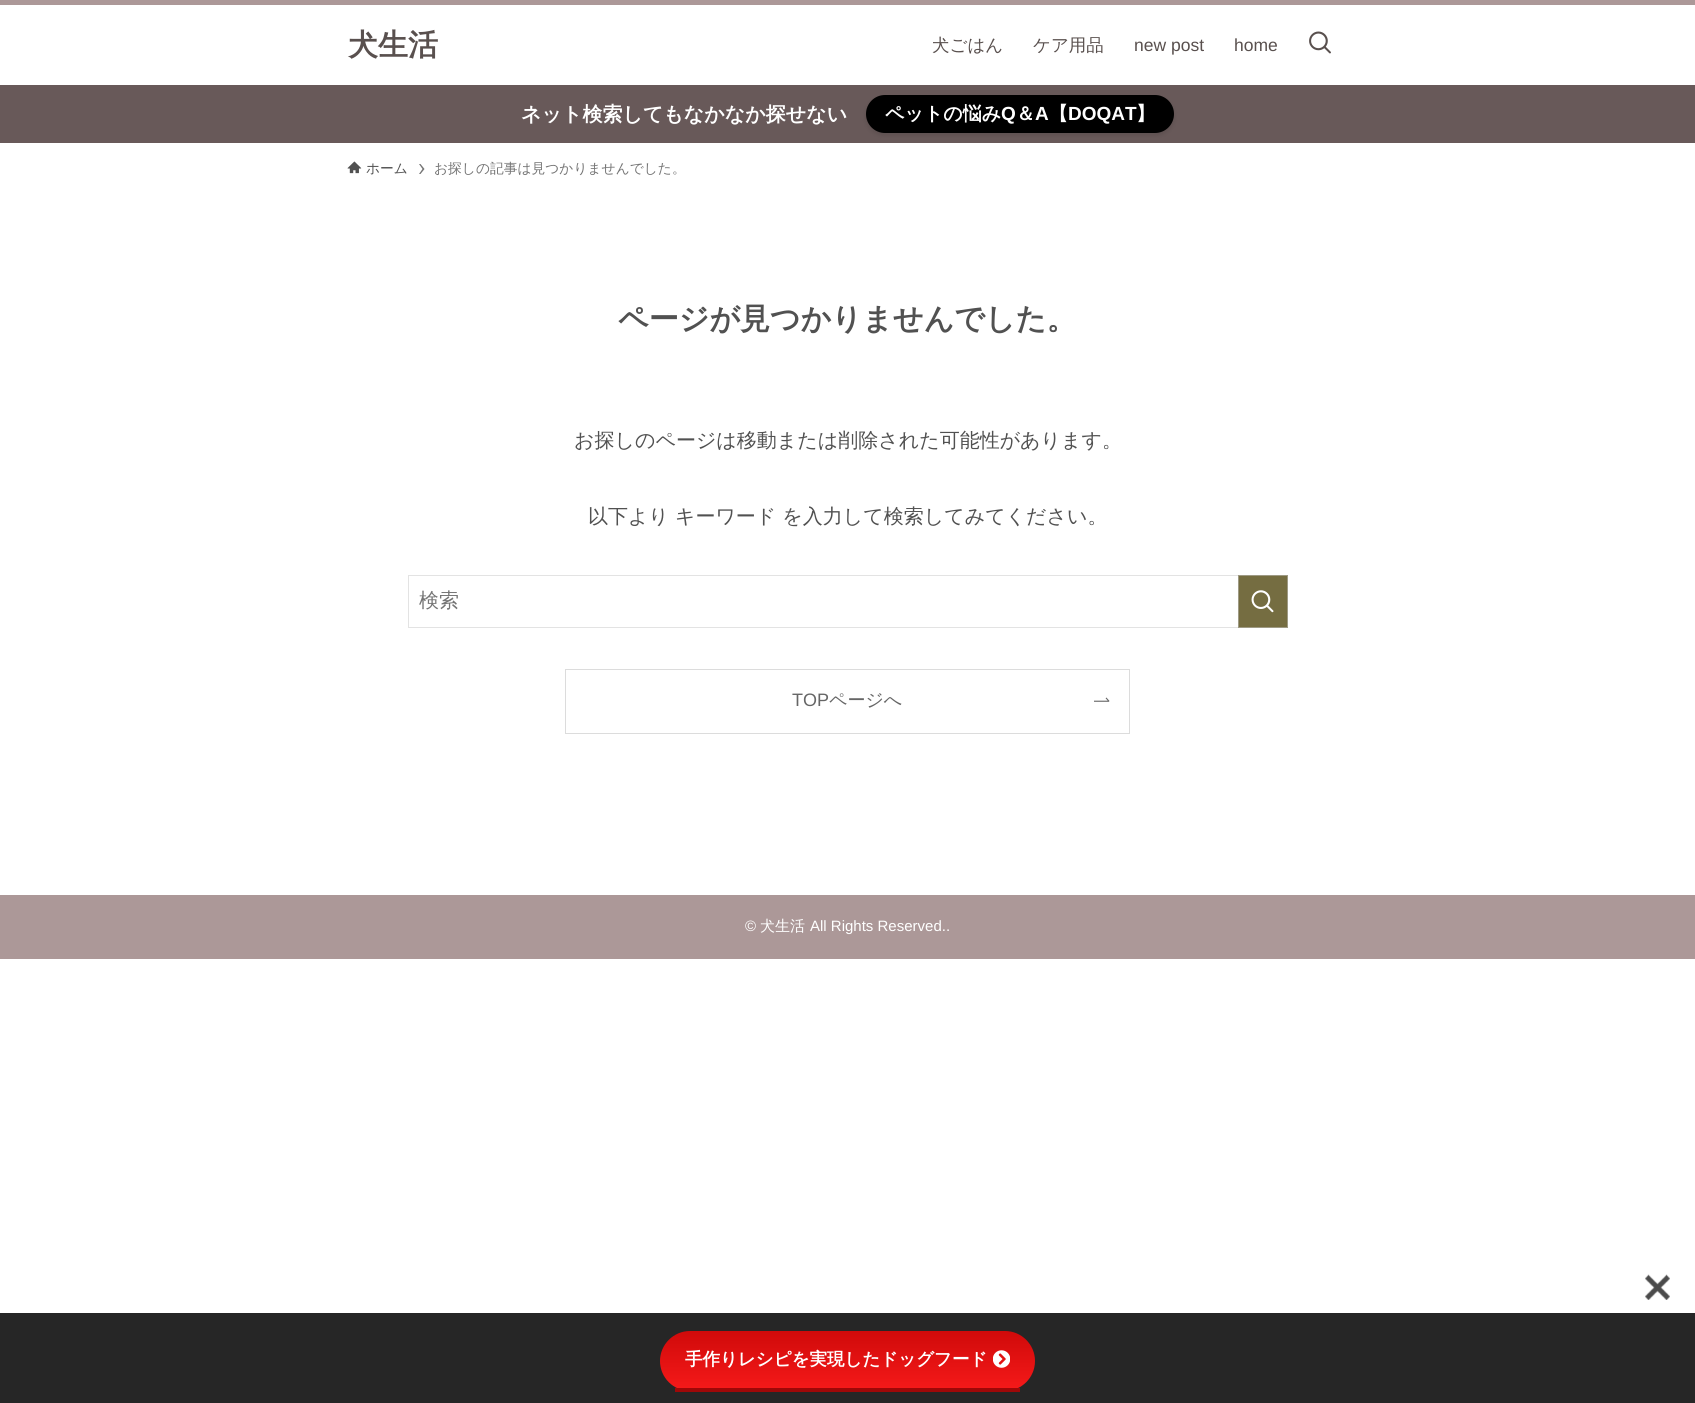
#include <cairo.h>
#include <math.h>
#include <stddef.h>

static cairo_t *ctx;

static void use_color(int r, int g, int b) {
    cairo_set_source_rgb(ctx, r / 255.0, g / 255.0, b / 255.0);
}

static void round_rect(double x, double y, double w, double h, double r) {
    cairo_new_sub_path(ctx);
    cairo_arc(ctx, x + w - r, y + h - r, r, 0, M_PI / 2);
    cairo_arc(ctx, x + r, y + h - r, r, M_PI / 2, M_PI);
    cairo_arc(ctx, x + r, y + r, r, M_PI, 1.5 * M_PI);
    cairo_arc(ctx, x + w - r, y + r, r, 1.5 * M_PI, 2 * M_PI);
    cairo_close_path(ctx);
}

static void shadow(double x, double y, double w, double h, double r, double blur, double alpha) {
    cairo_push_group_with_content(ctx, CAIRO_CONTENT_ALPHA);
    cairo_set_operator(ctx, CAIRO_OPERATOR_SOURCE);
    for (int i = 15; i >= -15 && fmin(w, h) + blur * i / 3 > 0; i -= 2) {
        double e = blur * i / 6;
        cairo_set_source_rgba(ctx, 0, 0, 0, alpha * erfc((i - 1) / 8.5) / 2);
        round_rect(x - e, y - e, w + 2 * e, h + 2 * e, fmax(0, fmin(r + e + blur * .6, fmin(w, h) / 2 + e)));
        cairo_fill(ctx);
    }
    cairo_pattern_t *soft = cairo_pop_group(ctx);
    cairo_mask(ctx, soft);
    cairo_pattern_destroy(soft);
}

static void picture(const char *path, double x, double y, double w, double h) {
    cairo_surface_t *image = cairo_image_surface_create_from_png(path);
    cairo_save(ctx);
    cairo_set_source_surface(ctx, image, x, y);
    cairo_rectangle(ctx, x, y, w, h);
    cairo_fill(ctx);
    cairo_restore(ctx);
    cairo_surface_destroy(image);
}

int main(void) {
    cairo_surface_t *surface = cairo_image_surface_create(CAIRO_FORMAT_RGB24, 1695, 1403);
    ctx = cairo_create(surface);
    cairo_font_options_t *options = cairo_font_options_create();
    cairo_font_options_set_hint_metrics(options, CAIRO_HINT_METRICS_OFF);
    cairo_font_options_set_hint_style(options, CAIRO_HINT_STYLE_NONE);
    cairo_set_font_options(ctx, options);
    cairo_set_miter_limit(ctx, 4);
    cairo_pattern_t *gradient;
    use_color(255, 255, 255);
    cairo_paint(ctx);
    use_color(172, 152, 152);
    cairo_rectangle(ctx, 0, 0, 1695, 5);
    cairo_fill(ctx);
    cairo_select_font_face(ctx, "WenQuanYi Zen Hei", CAIRO_FONT_SLANT_NORMAL, CAIRO_FONT_WEIGHT_BOLD);
    cairo_set_font_size(ctx, 30);
    use_color(89, 80, 78);
    cairo_move_to(ctx, 348, 55);
    cairo_show_text(ctx, "犬生活");
    cairo_select_font_face(ctx, "WenQuanYi Zen Hei Medium", CAIRO_FONT_SLANT_NORMAL, CAIRO_FONT_WEIGHT_NORMAL);
    cairo_set_font_size(ctx, 17.5);
    cairo_move_to(ctx, 932, 51);
    cairo_show_text(ctx, "犬ごはん");
    cairo_move_to(ctx, 1033, 51);
    cairo_show_text(ctx, "ケア用品");
    cairo_select_font_face(ctx, "Liberation Sans", CAIRO_FONT_SLANT_NORMAL, CAIRO_FONT_WEIGHT_NORMAL);
    cairo_move_to(ctx, 1134, 51);
    cairo_show_text(ctx, "new post");
    cairo_move_to(ctx, 1234, 51);
    cairo_show_text(ctx, "home");
    picture("img1.png", 1309, 31, 22, 23);
    use_color(104, 89, 89);
    cairo_rectangle(ctx, 0, 85, 1695, 58);
    cairo_fill(ctx);
    cairo_select_font_face(ctx, "WenQuanYi Zen Hei", CAIRO_FONT_SLANT_NORMAL, CAIRO_FONT_WEIGHT_BOLD);
    cairo_set_font_size(ctx, 20);
    use_color(255, 255, 255);
    cairo_move_to(ctx, 521, 121);
    cairo_show_text(ctx, "ネット検索してもなかなか探せない");
    use_color(0, 0, 0);
    shadow(866, 98, 308, 37, 18.5, 2.5, 0.12);
    use_color(0, 0, 0);
    round_rect(866, 95, 308, 38, 19);
    cairo_fill(ctx);
    cairo_set_font_size(ctx, 19);
    use_color(255, 255, 255);
    cairo_move_to(ctx, 885, 120);
    cairo_show_text(ctx, "ペットの悩み");
    cairo_select_font_face(ctx, "Liberation Sans", CAIRO_FONT_SLANT_NORMAL, CAIRO_FONT_WEIGHT_BOLD);
    cairo_move_to(ctx, 1001, 120);
    cairo_show_text(ctx, "Q");
    cairo_select_font_face(ctx, "WenQuanYi Zen Hei", CAIRO_FONT_SLANT_NORMAL, CAIRO_FONT_WEIGHT_BOLD);
    cairo_move_to(ctx, 1016, 120);
    cairo_show_text(ctx, "＆");
    cairo_select_font_face(ctx, "Liberation Sans", CAIRO_FONT_SLANT_NORMAL, CAIRO_FONT_WEIGHT_BOLD);
    cairo_move_to(ctx, 1035, 120);
    cairo_show_text(ctx, "A");
    cairo_select_font_face(ctx, "WenQuanYi Zen Hei", CAIRO_FONT_SLANT_NORMAL, CAIRO_FONT_WEIGHT_BOLD);
    cairo_move_to(ctx, 1049, 120);
    cairo_show_text(ctx, "【");
    cairo_select_font_face(ctx, "Liberation Sans", CAIRO_FONT_SLANT_NORMAL, CAIRO_FONT_WEIGHT_BOLD);
    cairo_move_to(ctx, 1068, 120);
    cairo_show_text(ctx, "DOQAT");
    cairo_select_font_face(ctx, "WenQuanYi Zen Hei", CAIRO_FONT_SLANT_NORMAL, CAIRO_FONT_WEIGHT_BOLD);
    cairo_move_to(ctx, 1136, 120);
    cairo_show_text(ctx, "】");
    picture("img2.png", 347, 161, 15, 13);
    cairo_select_font_face(ctx, "WenQuanYi Zen Hei Medium", CAIRO_FONT_SLANT_NORMAL, CAIRO_FONT_WEIGHT_NORMAL);
    cairo_set_font_size(ctx, 13.75);
    use_color(81, 81, 81);
    cairo_move_to(ctx, 366, 173);
    cairo_show_text(ctx, "ホーム");
    use_color(116, 116, 116);
    cairo_new_path(ctx);
    cairo_move_to(ctx, 420.5, 164);
    cairo_line_to(ctx, 419, 164);
    cairo_line_to(ctx, 422.5, 169);
    cairo_line_to(ctx, 419, 174);
    cairo_line_to(ctx, 420.5, 174);
    cairo_line_to(ctx, 424.5, 169);
    cairo_close_path(ctx);
    cairo_fill(ctx);
    cairo_move_to(ctx, 434, 173);
    cairo_show_text(ctx, "お探しの記事は見つかりませんでした。");
    cairo_select_font_face(ctx, "WenQuanYi Zen Hei", CAIRO_FONT_SLANT_NORMAL, CAIRO_FONT_WEIGHT_BOLD);
    cairo_set_font_size(ctx, 30);
    use_color(81, 81, 81);
    cairo_move_to(ctx, 618, 329);
    cairo_show_text(ctx, "ページが見つかりませんでした。");
    cairo_select_font_face(ctx, "WenQuanYi Zen Hei Medium", CAIRO_FONT_SLANT_NORMAL, CAIRO_FONT_WEIGHT_NORMAL);
    cairo_set_font_size(ctx, 20);
    cairo_move_to(ctx, 574, 447);
    cairo_show_text(ctx, "お探しのページは移動または削除された可能性があります。");
    cairo_move_to(ctx, 588, 523);
    cairo_show_text(ctx, "以下より キーワード を入力して検索してみてください。");
    cairo_rectangle(ctx, 408.5, 575.5, 879, 52);
    use_color(227, 227, 227);
    cairo_set_line_width(ctx, 1);
    cairo_stroke(ctx);
    use_color(116, 116, 116);
    cairo_move_to(ctx, 419, 607);
    cairo_show_text(ctx, "検索");
    use_color(117, 109, 65);
    cairo_rectangle(ctx, 1238.5, 575.5, 49, 52);
    cairo_fill_preserve(ctx);
    use_color(158, 154, 132);
    cairo_stroke(ctx);
    picture("img3.png", 1251, 590, 23, 23);
    cairo_rectangle(ctx, 565.5, 669.5, 564, 64);
    use_color(220, 220, 220);
    cairo_stroke(ctx);
    cairo_select_font_face(ctx, "Liberation Sans", CAIRO_FONT_SLANT_NORMAL, CAIRO_FONT_WEIGHT_NORMAL);
    cairo_set_font_size(ctx, 18);
    use_color(102, 102, 102);
    cairo_move_to(ctx, 792, 706);
    cairo_show_text(ctx, "TOP");
    cairo_select_font_face(ctx, "WenQuanYi Zen Hei Medium", CAIRO_FONT_SLANT_NORMAL, CAIRO_FONT_WEIGHT_NORMAL);
    cairo_move_to(ctx, 829, 706);
    cairo_show_text(ctx, "ページへ");
    picture("img4.png", 1094, 697, 16, 5);
    use_color(172, 152, 152);
    cairo_rectangle(ctx, 0, 895, 1695, 64);
    cairo_fill(ctx);
    cairo_select_font_face(ctx, "Liberation Sans", CAIRO_FONT_SLANT_NORMAL, CAIRO_FONT_WEIGHT_NORMAL);
    cairo_set_font_size(ctx, 15);
    use_color(255, 255, 255);
    cairo_move_to(ctx, 745, 931);
    cairo_show_text(ctx, "©");
    cairo_select_font_face(ctx, "WenQuanYi Zen Hei Medium", CAIRO_FONT_SLANT_NORMAL, CAIRO_FONT_WEIGHT_NORMAL);
    cairo_move_to(ctx, 760, 931);
    cairo_show_text(ctx, "犬生活");
    cairo_select_font_face(ctx, "Liberation Sans", CAIRO_FONT_SLANT_NORMAL, CAIRO_FONT_WEIGHT_NORMAL);
    cairo_move_to(ctx, 810, 931);
    cairo_show_text(ctx, "All Rights Reserved..");
    use_color(38, 38, 38);
    cairo_rectangle(ctx, 0, 1313, 1695, 90);
    cairo_fill(ctx);
    picture("img5.png", 1645, 1274, 25, 26);
    cairo_save(ctx);
    round_rect(660, 1331, 375, 60, 30);
    cairo_clip(ctx);
    gradient = cairo_pattern_create_linear(848, 1331, 848, 1388);
    cairo_pattern_add_color_stop_rgba(gradient, 0, 0.816, 0.039, 0.039, 1);
    cairo_pattern_add_color_stop_rgba(gradient, 1, 0.957, 0.098, 0.098, 1);
    cairo_set_source(ctx, gradient);
    cairo_pattern_destroy(gradient);
    cairo_new_path(ctx);
    cairo_move_to(ctx, 690, 1331);
    cairo_line_to(ctx, 1005, 1331);
    cairo_curve_to(ctx, 1021.5, 1331, 1035, 1344.5, 1035, 1361);
    cairo_line_to(ctx, 1035, 1388);
    cairo_line_to(ctx, 660, 1388);
    cairo_line_to(ctx, 660, 1361);
    cairo_curve_to(ctx, 660, 1344.5, 673.5, 1331, 690, 1331);
    cairo_close_path(ctx);
    cairo_fill(ctx);
    cairo_restore(ctx);
    use_color(159, 8, 8);
    cairo_rectangle(ctx, 675, 1388, 345, 4);
    cairo_fill(ctx);
    cairo_select_font_face(ctx, "WenQuanYi Zen Hei", CAIRO_FONT_SLANT_NORMAL, CAIRO_FONT_WEIGHT_BOLD);
    cairo_set_font_size(ctx, 17.5);
    use_color(255, 255, 255);
    cairo_move_to(ctx, 685, 1365);
    cairo_show_text(ctx, "手作りレシピを実現したドッグフード");
    picture("img6.png", 993, 1350, 17, 18);
    cairo_surface_write_to_png(surface, "result.png");
    cairo_font_options_destroy(options);
    cairo_destroy(ctx);
    cairo_surface_destroy(surface);
    return 0;
}
